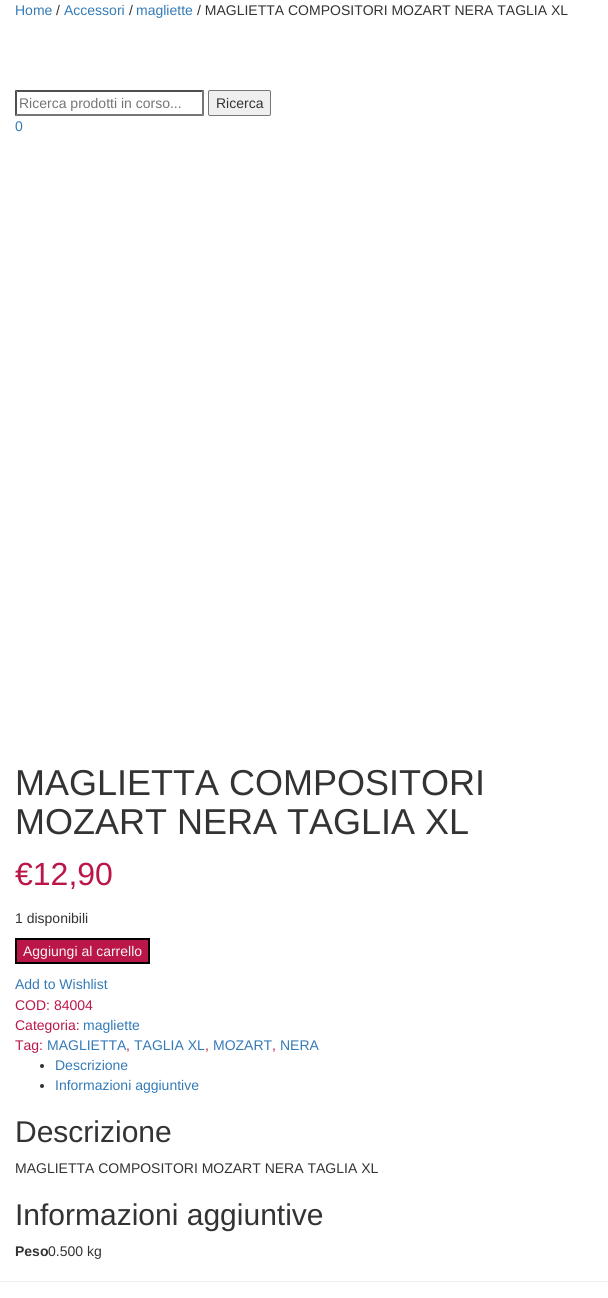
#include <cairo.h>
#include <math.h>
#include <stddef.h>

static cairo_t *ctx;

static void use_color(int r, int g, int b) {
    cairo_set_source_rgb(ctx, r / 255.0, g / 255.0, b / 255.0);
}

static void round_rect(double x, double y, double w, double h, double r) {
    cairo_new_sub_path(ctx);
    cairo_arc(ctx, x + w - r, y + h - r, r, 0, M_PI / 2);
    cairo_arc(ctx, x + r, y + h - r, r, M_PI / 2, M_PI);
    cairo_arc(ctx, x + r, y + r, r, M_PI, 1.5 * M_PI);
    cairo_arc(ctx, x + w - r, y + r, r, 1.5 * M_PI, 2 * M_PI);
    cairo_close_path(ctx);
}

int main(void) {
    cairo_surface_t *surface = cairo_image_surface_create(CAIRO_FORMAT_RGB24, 608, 1298);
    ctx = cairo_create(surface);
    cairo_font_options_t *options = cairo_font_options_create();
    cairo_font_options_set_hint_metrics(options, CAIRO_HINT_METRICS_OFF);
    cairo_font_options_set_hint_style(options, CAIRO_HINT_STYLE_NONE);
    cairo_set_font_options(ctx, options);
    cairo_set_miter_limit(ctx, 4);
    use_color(255, 255, 255);
    cairo_paint(ctx);
    cairo_select_font_face(ctx, "Liberation Sans", CAIRO_FONT_SLANT_NORMAL, CAIRO_FONT_WEIGHT_NORMAL);
    cairo_set_font_size(ctx, 14);
    use_color(51, 122, 183);
    cairo_move_to(ctx, 15, 15);
    cairo_show_text(ctx, "Home");
    use_color(51, 51, 51);
    cairo_move_to(ctx, 56, 15);
    cairo_show_text(ctx, "/");
    use_color(51, 122, 183);
    cairo_move_to(ctx, 64, 15);
    cairo_show_text(ctx, "Accessori");
    use_color(51, 51, 51);
    cairo_move_to(ctx, 129, 15);
    cairo_show_text(ctx, "/");
    use_color(51, 122, 183);
    cairo_move_to(ctx, 136, 15);
    cairo_show_text(ctx, "magliette");
    use_color(51, 51, 51);
    cairo_move_to(ctx, 197, 15);
    cairo_show_text(ctx, "/ MAGLIETTA COMPOSITORI MOZART NERA TAGLIA XL");
    cairo_set_font_size(ctx, 36);
    cairo_move_to(ctx, 15, 795);
    cairo_show_text(ctx, "MAGLIETTA COMPOSITORI");
    cairo_move_to(ctx, 15, 834);
    cairo_show_text(ctx, "MOZART NERA TAGLIA XL");
    cairo_set_font_size(ctx, 32);
    use_color(187, 22, 72);
    cairo_move_to(ctx, 15, 885);
    cairo_show_text(ctx, "€12,90");
    cairo_set_font_size(ctx, 14);
    use_color(51, 51, 51);
    cairo_move_to(ctx, 15, 923);
    cairo_show_text(ctx, "1 disponibili");
    use_color(187, 22, 72);
    cairo_rectangle(ctx, 16, 939, 133, 24);
    cairo_fill_preserve(ctx);
    use_color(0, 0, 0);
    cairo_stroke(ctx);
    use_color(246, 246, 246);
    cairo_move_to(ctx, 23, 956);
    cairo_show_text(ctx, "Aggiungi al carrello");
    use_color(51, 122, 183);
    cairo_move_to(ctx, 15, 989);
    cairo_show_text(ctx, "Add to Wishlist");
    use_color(187, 22, 72);
    cairo_move_to(ctx, 15, 1010);
    cairo_show_text(ctx, "COD: 84004");
    cairo_move_to(ctx, 15, 1030);
    cairo_show_text(ctx, "Categoria:");
    use_color(51, 122, 183);
    cairo_move_to(ctx, 83, 1030);
    cairo_show_text(ctx, "magliette");
    use_color(187, 22, 72);
    cairo_move_to(ctx, 15, 1050);
    cairo_show_text(ctx, "Tag:");
    use_color(51, 122, 183);
    cairo_move_to(ctx, 47, 1050);
    cairo_show_text(ctx, "MAGLIETTA");
    use_color(187, 22, 72);
    cairo_move_to(ctx, 126, 1050);
    cairo_show_text(ctx, ",");
    use_color(51, 122, 183);
    cairo_move_to(ctx, 134, 1050);
    cairo_show_text(ctx, "TAGLIA XL");
    use_color(187, 22, 72);
    cairo_move_to(ctx, 205, 1050);
    cairo_show_text(ctx, ",");
    use_color(51, 122, 183);
    cairo_move_to(ctx, 213, 1050);
    cairo_show_text(ctx, "MOZART");
    use_color(187, 22, 72);
    cairo_move_to(ctx, 272, 1050);
    cairo_show_text(ctx, ",");
    use_color(51, 122, 183);
    cairo_move_to(ctx, 280, 1050);
    cairo_show_text(ctx, "NERA");
    use_color(51, 51, 51);
    cairo_new_path(ctx);
    cairo_arc(ctx, 42, 1066, 2, 0, 2 * M_PI);
    cairo_fill(ctx);
    use_color(51, 122, 183);
    cairo_move_to(ctx, 55, 1070);
    cairo_show_text(ctx, "Descrizione");
    use_color(51, 51, 51);
    cairo_new_path(ctx);
    cairo_arc(ctx, 42, 1086, 2, 0, 2 * M_PI);
    cairo_fill(ctx);
    use_color(51, 122, 183);
    cairo_move_to(ctx, 55, 1090);
    cairo_show_text(ctx, "Informazioni aggiuntive");
    cairo_set_font_size(ctx, 30);
    use_color(51, 51, 51);
    cairo_move_to(ctx, 15, 1142);
    cairo_show_text(ctx, "Descrizione");
    cairo_set_font_size(ctx, 14);
    cairo_move_to(ctx, 15, 1173);
    cairo_show_text(ctx, "MAGLIETTA COMPOSITORI MOZART NERA TAGLIA XL");
    cairo_set_font_size(ctx, 30);
    cairo_move_to(ctx, 15, 1225);
    cairo_show_text(ctx, "Informazioni aggiuntive");
    cairo_select_font_face(ctx, "Liberation Sans", CAIRO_FONT_SLANT_NORMAL, CAIRO_FONT_WEIGHT_BOLD);
    cairo_set_font_size(ctx, 14);
    cairo_move_to(ctx, 15, 1256);
    cairo_show_text(ctx, "Peso");
    cairo_select_font_face(ctx, "Liberation Sans", CAIRO_FONT_SLANT_NORMAL, CAIRO_FONT_WEIGHT_NORMAL);
    cairo_move_to(ctx, 48, 1256);
    cairo_show_text(ctx, "0.500 kg");
    use_color(238, 238, 238);
    cairo_rectangle(ctx, 0, 1281, 608, 1);
    cairo_fill(ctx);
    use_color(79, 79, 79);
    cairo_new_path(ctx);
    cairo_move_to(ctx, 15, 90);
    cairo_line_to(ctx, 204, 90);
    cairo_line_to(ctx, 202, 92);
    cairo_line_to(ctx, 17, 92);
    cairo_close_path(ctx);
    cairo_fill(ctx);
    use_color(118, 118, 118);
    cairo_new_path(ctx);
    cairo_move_to(ctx, 204, 90);
    cairo_line_to(ctx, 204, 116);
    cairo_line_to(ctx, 202, 114);
    cairo_line_to(ctx, 202, 92);
    cairo_close_path(ctx);
    cairo_fill(ctx);
    cairo_new_path(ctx);
    cairo_move_to(ctx, 204, 116);
    cairo_line_to(ctx, 15, 116);
    cairo_line_to(ctx, 17, 114);
    cairo_line_to(ctx, 202, 114);
    cairo_close_path(ctx);
    cairo_fill(ctx);
    use_color(79, 79, 79);
    cairo_new_path(ctx);
    cairo_move_to(ctx, 15, 116);
    cairo_line_to(ctx, 15, 90);
    cairo_line_to(ctx, 17, 92);
    cairo_line_to(ctx, 17, 114);
    cairo_close_path(ctx);
    cairo_fill(ctx);
    use_color(117, 117, 117);
    cairo_move_to(ctx, 19, 108);
    cairo_show_text(ctx, "Ricerca prodotti in corso...");
    use_color(239, 239, 239);
    round_rect(208.5, 90.5, 62, 25, 1.5);
    cairo_fill_preserve(ctx);
    use_color(118, 118, 118);
    cairo_set_line_width(ctx, 1);
    cairo_stroke(ctx);
    use_color(51, 51, 51);
    cairo_move_to(ctx, 216, 108);
    cairo_show_text(ctx, "Ricerca");
    use_color(51, 122, 183);
    cairo_move_to(ctx, 15, 131);
    cairo_show_text(ctx, "0");
    cairo_surface_write_to_png(surface, "result.png");
    cairo_font_options_destroy(options);
    cairo_destroy(ctx);
    cairo_surface_destroy(surface);
    return 0;
}
